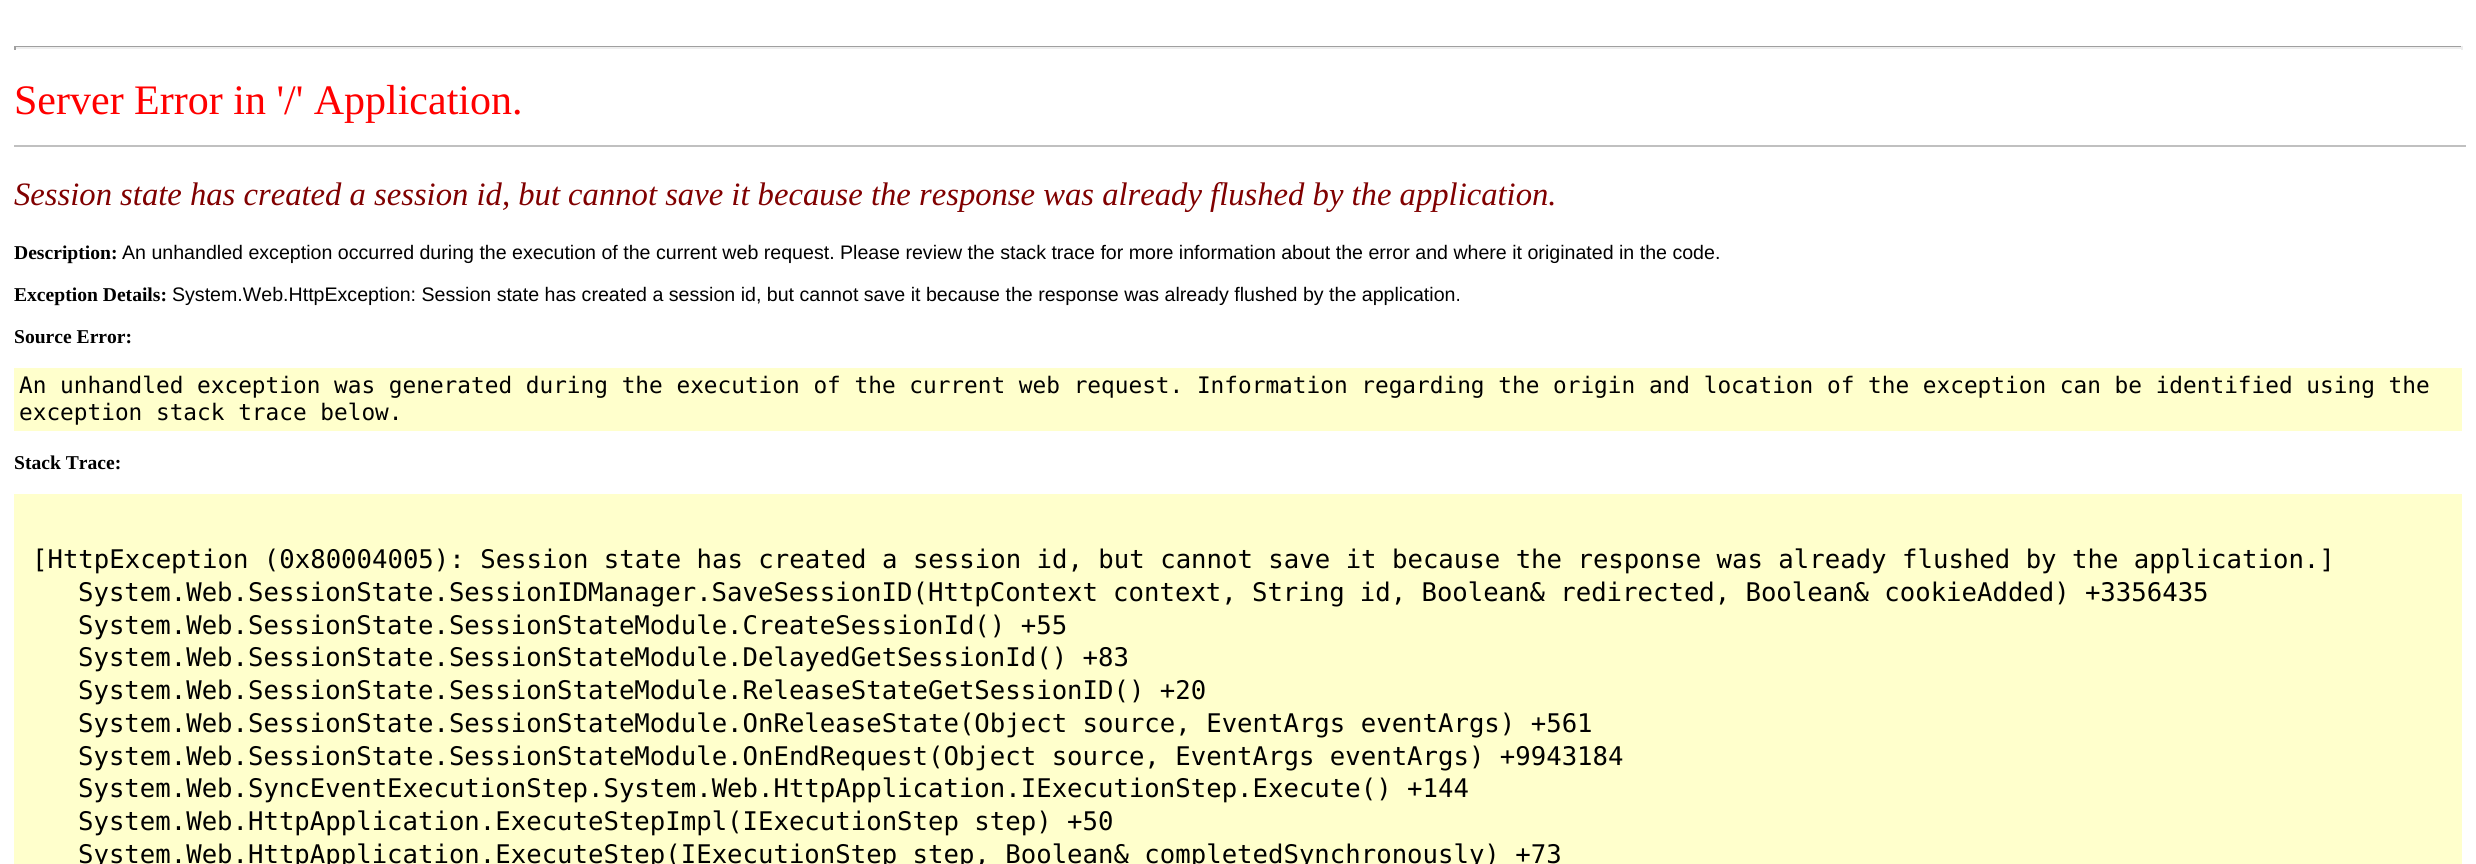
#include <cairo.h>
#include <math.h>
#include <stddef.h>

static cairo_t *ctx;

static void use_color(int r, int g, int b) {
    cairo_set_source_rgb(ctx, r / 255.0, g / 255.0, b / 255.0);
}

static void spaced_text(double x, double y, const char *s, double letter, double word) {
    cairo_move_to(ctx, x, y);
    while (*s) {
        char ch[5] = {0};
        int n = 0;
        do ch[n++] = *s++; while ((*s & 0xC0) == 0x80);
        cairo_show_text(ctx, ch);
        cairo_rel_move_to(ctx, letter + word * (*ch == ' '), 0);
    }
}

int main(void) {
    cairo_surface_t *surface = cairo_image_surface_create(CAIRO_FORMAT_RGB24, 2476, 864);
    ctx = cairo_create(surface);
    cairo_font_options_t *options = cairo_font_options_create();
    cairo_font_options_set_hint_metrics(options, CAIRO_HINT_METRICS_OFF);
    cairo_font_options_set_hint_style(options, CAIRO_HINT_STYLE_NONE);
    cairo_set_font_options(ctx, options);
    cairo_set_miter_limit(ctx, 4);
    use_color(255, 255, 255);
    cairo_paint(ctx);
    use_color(159, 159, 159);
    cairo_rectangle(ctx, 14, 46, 2448, 1);
    cairo_fill(ctx);
    use_color(238, 238, 238);
    cairo_rectangle(ctx, 2461, 46, 2, 4);
    cairo_fill(ctx);
    cairo_rectangle(ctx, 14, 47, 2448, 2);
    cairo_fill(ctx);
    use_color(159, 159, 159);
    cairo_rectangle(ctx, 14, 46, 2, 4);
    cairo_fill(ctx);
    cairo_select_font_face(ctx, "Liberation Serif", CAIRO_FONT_SLANT_NORMAL, CAIRO_FONT_WEIGHT_NORMAL);
    cairo_set_font_size(ctx, 42);
    use_color(255, 0, 0);
    cairo_move_to(ctx, 14, 114);
    cairo_show_text(ctx, "Server Error in '/' Application.");
    use_color(192, 192, 192);
    cairo_rectangle(ctx, 14, 145, 2452, 2);
    cairo_fill(ctx);
    cairo_select_font_face(ctx, "Liberation Serif", CAIRO_FONT_SLANT_ITALIC, CAIRO_FONT_WEIGHT_NORMAL);
    cairo_set_font_size(ctx, 32.65);
    use_color(128, 0, 0);
    cairo_move_to(ctx, 14, 205);
    cairo_show_text(ctx, "Session state has created a session id, but cannot save it because the response was already flushed by the application.");
    cairo_select_font_face(ctx, "Liberation Serif", CAIRO_FONT_SLANT_NORMAL, CAIRO_FONT_WEIGHT_BOLD);
    cairo_set_font_size(ctx, 19.6);
    use_color(0, 0, 0);
    cairo_move_to(ctx, 14, 259);
    cairo_show_text(ctx, "Description:");
    cairo_select_font_face(ctx, "Liberation Sans", CAIRO_FONT_SLANT_NORMAL, CAIRO_FONT_WEIGHT_NORMAL);
    cairo_move_to(ctx, 122, 259);
    cairo_show_text(ctx, "An unhandled exception occurred during the execution of the current web request. Please review the stack trace for more information about the error and where it originated in the code.");
    cairo_select_font_face(ctx, "Liberation Serif", CAIRO_FONT_SLANT_NORMAL, CAIRO_FONT_WEIGHT_BOLD);
    cairo_move_to(ctx, 14, 301);
    cairo_show_text(ctx, "Exception Details:");
    cairo_select_font_face(ctx, "Liberation Sans", CAIRO_FONT_SLANT_NORMAL, CAIRO_FONT_WEIGHT_NORMAL);
    cairo_move_to(ctx, 172, 301);
    cairo_show_text(ctx, "System.Web.HttpException: Session state has created a session id, but cannot save it because the response was already flushed by the application.");
    cairo_select_font_face(ctx, "Liberation Serif", CAIRO_FONT_SLANT_NORMAL, CAIRO_FONT_WEIGHT_BOLD);
    cairo_move_to(ctx, 14, 343);
    cairo_show_text(ctx, "Source Error:");
    use_color(255, 255, 204);
    cairo_rectangle(ctx, 14, 368, 2448, 63);
    cairo_fill(ctx);
    cairo_select_font_face(ctx, "DejaVu Sans Mono", CAIRO_FONT_SLANT_NORMAL, CAIRO_FONT_WEIGHT_NORMAL);
    cairo_set_font_size(ctx, 22.75);
    use_color(0, 0, 0);
    cairo_move_to(ctx, 19, 393);
    cairo_show_text(ctx, "An unhandled exception was generated during the execution of the current web request. Information regarding the origin and location of the exception can be identified using the");
    cairo_move_to(ctx, 19, 420);
    cairo_show_text(ctx, "exception stack trace below.");
    cairo_select_font_face(ctx, "Liberation Serif", CAIRO_FONT_SLANT_NORMAL, CAIRO_FONT_WEIGHT_BOLD);
    cairo_set_font_size(ctx, 19.6);
    cairo_move_to(ctx, 14, 469);
    cairo_show_text(ctx, "Stack Trace:");
    use_color(255, 255, 204);
    cairo_rectangle(ctx, 14, 494, 2448, 370);
    cairo_fill(ctx);
    cairo_select_font_face(ctx, "DejaVu Sans Mono", CAIRO_FONT_SLANT_NORMAL, CAIRO_FONT_WEIGHT_NORMAL);
    cairo_set_font_size(ctx, 25.67);
    use_color(0, 0, 0);
    cairo_move_to(ctx, 32, 568);
    cairo_show_text(ctx, "[HttpException (0x80004005): Session state has created a session id, but cannot save it because the response was already flushed by the application.]");
    spaced_text(78, 601, "System.Web.SessionState.SessionIDManager.SaveSessionID(HttpContext context, String id, Boolean& redirected, Boolean& cookieAdded) +3356435", 0, -0.25);
    cairo_move_to(ctx, 78, 634);
    cairo_show_text(ctx, "System.Web.SessionState.SessionStateModule.CreateSessionId() +55");
    cairo_move_to(ctx, 78, 666);
    cairo_show_text(ctx, "System.Web.SessionState.SessionStateModule.DelayedGetSessionId() +83");
    cairo_move_to(ctx, 78, 699);
    cairo_show_text(ctx, "System.Web.SessionState.SessionStateModule.ReleaseStateGetSessionID() +20");
    cairo_move_to(ctx, 78, 732);
    cairo_show_text(ctx, "System.Web.SessionState.SessionStateModule.OnReleaseState(Object source, EventArgs eventArgs) +561");
    cairo_move_to(ctx, 78, 765);
    cairo_show_text(ctx, "System.Web.SessionState.SessionStateModule.OnEndRequest(Object source, EventArgs eventArgs) +9943184");
    cairo_move_to(ctx, 78, 797);
    cairo_show_text(ctx, "System.Web.SyncEventExecutionStep.System.Web.HttpApplication.IExecutionStep.Execute() +144");
    cairo_move_to(ctx, 78, 830);
    cairo_show_text(ctx, "System.Web.HttpApplication.ExecuteStepImpl(IExecutionStep step) +50");
    cairo_move_to(ctx, 78, 863);
    cairo_show_text(ctx, "System.Web.HttpApplication.ExecuteStep(IExecutionStep step, Boolean& completedSynchronously) +73");
    cairo_surface_write_to_png(surface, "result.png");
    cairo_font_options_destroy(options);
    cairo_destroy(ctx);
    cairo_surface_destroy(surface);
    return 0;
}
